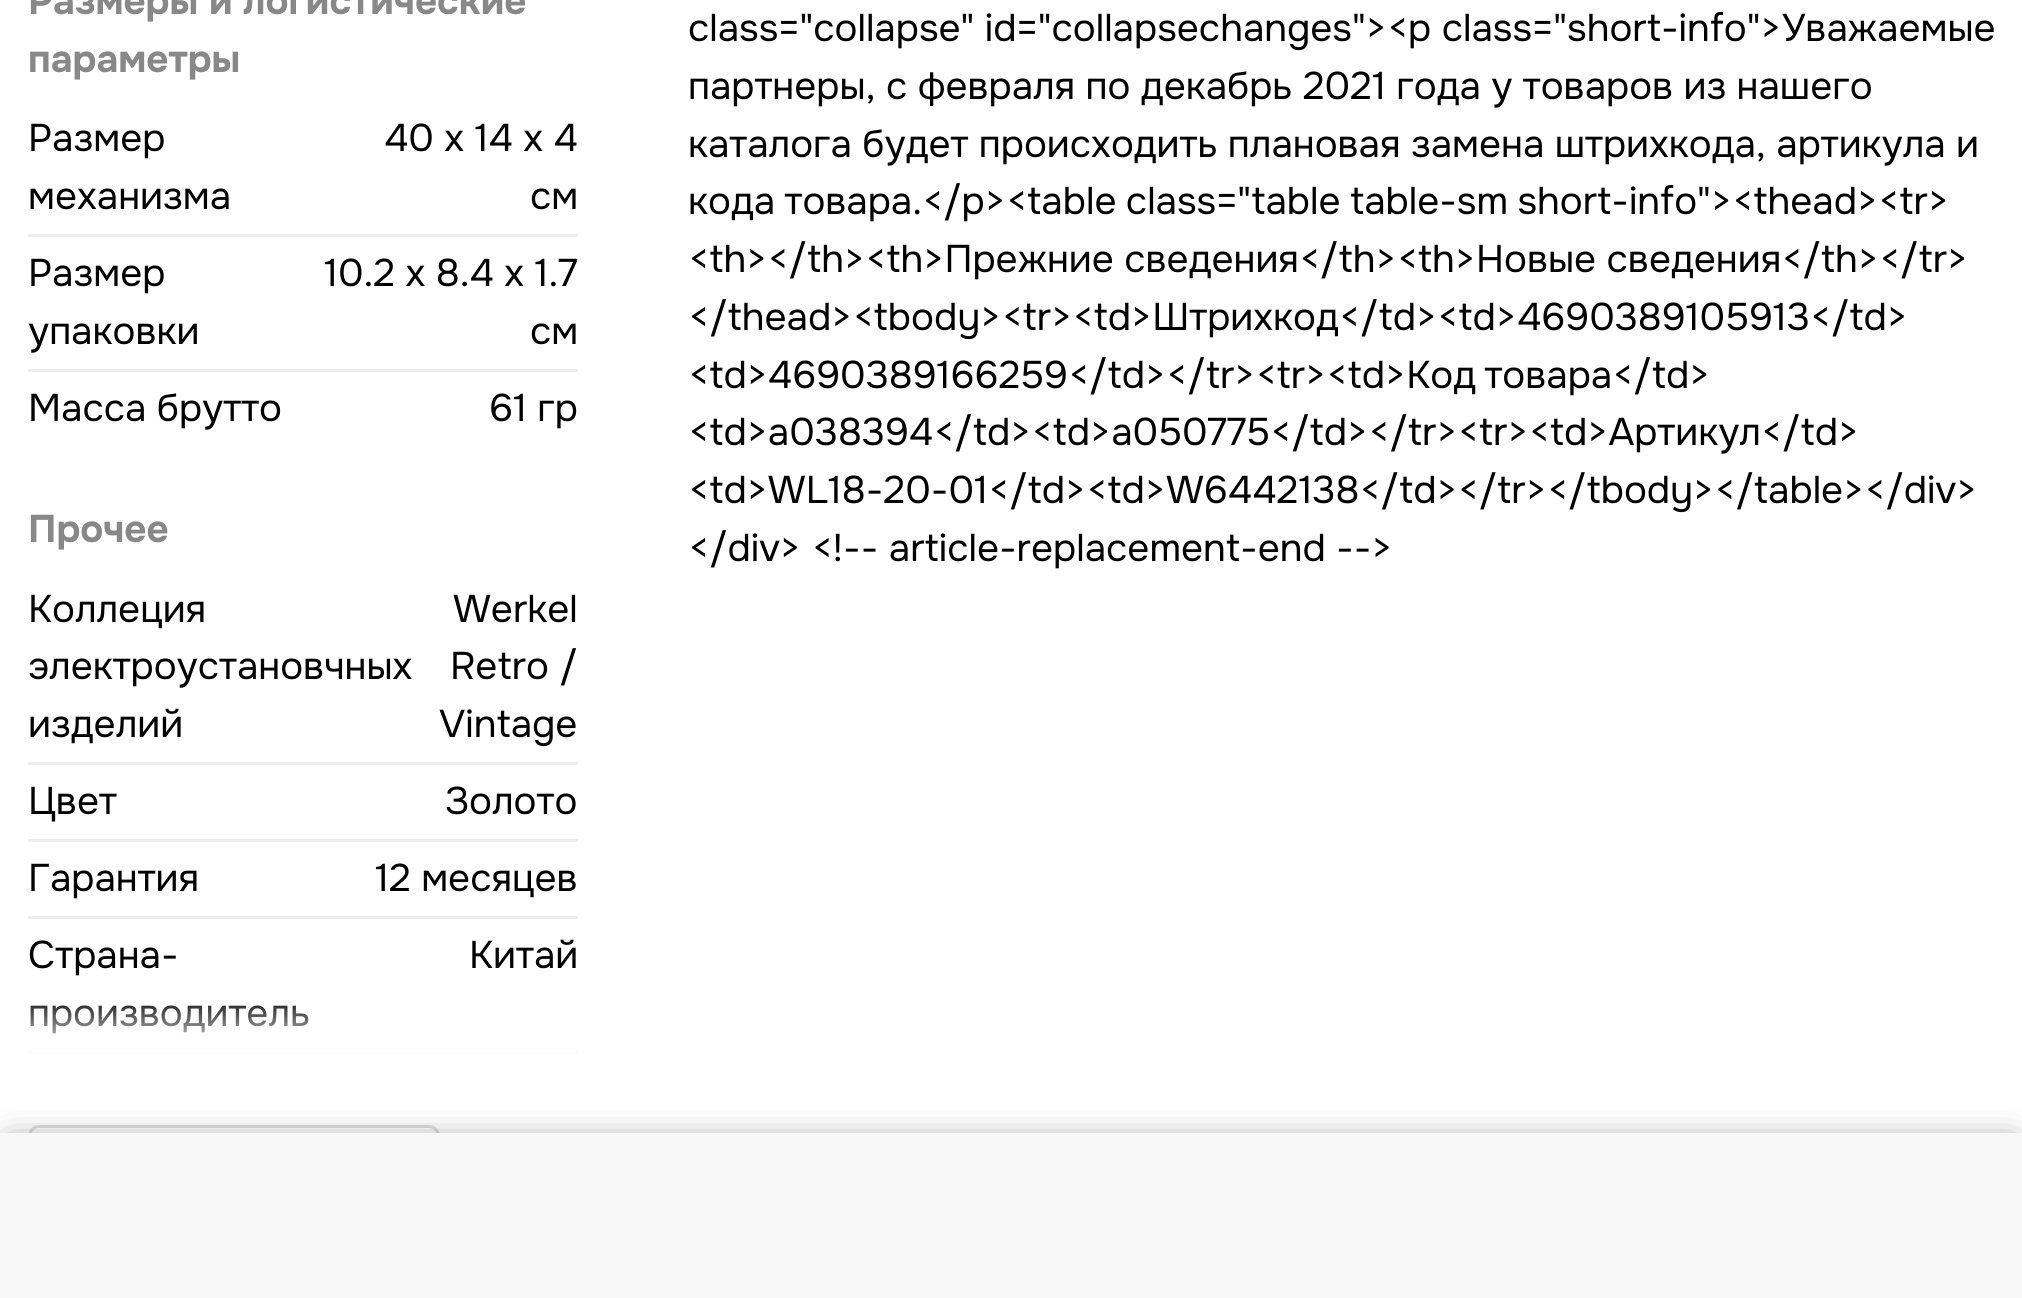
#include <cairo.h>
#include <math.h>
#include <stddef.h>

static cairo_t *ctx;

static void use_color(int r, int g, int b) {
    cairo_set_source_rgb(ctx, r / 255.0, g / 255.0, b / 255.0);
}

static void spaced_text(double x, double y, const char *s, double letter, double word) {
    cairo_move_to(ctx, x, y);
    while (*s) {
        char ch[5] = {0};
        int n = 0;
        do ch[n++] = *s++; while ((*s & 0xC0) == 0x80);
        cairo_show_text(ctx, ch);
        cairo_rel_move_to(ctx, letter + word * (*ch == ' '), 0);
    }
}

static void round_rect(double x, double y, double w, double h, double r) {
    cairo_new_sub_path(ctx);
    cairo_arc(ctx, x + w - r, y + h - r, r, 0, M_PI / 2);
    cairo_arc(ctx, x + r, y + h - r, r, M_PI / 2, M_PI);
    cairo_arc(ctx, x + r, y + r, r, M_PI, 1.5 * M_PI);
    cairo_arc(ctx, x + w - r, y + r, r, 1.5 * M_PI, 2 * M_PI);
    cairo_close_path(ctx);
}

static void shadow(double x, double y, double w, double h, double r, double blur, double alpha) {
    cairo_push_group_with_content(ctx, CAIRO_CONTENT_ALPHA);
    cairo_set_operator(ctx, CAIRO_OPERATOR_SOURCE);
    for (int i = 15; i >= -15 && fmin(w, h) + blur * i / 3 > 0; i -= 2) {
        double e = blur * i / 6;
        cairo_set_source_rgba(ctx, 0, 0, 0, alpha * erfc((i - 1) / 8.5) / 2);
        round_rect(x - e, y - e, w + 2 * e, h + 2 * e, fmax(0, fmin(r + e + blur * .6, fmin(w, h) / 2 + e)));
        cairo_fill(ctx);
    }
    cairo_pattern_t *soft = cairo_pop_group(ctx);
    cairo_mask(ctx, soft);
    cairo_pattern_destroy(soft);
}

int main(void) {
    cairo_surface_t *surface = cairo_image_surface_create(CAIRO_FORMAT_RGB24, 2022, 1298);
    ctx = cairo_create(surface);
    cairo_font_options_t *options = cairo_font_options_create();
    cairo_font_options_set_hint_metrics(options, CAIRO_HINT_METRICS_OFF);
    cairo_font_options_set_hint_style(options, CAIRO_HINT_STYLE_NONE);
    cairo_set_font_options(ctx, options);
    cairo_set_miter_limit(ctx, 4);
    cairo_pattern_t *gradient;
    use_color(255, 255, 255);
    cairo_paint(ctx);
    cairo_select_font_face(ctx, "Onest", CAIRO_FONT_SLANT_NORMAL, CAIRO_FONT_WEIGHT_BOLD);
    cairo_set_font_size(ctx, 38.5);
    use_color(136, 136, 136);
    cairo_move_to(ctx, 28, 14);
    cairo_show_text(ctx, "Размеры и логистические");
    cairo_move_to(ctx, 28, 72);
    cairo_show_text(ctx, "параметры");
    use_color(238, 238, 238);
    cairo_rectangle(ctx, 28, 234, 550, 3);
    cairo_fill(ctx);
    cairo_select_font_face(ctx, "Onest", CAIRO_FONT_SLANT_NORMAL, CAIRO_FONT_WEIGHT_NORMAL);
    use_color(0, 0, 0);
    cairo_move_to(ctx, 28, 151);
    cairo_show_text(ctx, "Размер");
    cairo_move_to(ctx, 28, 209);
    cairo_show_text(ctx, "механизма");
    cairo_move_to(ctx, 384, 151);
    cairo_show_text(ctx, "40 x 14 x 4");
    cairo_move_to(ctx, 530, 209);
    cairo_show_text(ctx, "см");
    use_color(238, 238, 238);
    cairo_rectangle(ctx, 28, 369, 550, 3);
    cairo_fill(ctx);
    use_color(0, 0, 0);
    cairo_move_to(ctx, 28, 286);
    cairo_show_text(ctx, "Размер");
    cairo_move_to(ctx, 28, 344);
    cairo_show_text(ctx, "упаковки");
    cairo_move_to(ctx, 324, 286);
    cairo_show_text(ctx, "10.2 x 8.4 x 1.7");
    cairo_move_to(ctx, 530, 344);
    cairo_show_text(ctx, "см");
    cairo_move_to(ctx, 28, 421);
    cairo_show_text(ctx, "Масса брутто");
    cairo_move_to(ctx, 489, 421);
    cairo_show_text(ctx, "61 гр");
    cairo_select_font_face(ctx, "Onest", CAIRO_FONT_SLANT_NORMAL, CAIRO_FONT_WEIGHT_BOLD);
    use_color(136, 136, 136);
    cairo_move_to(ctx, 28, 542);
    cairo_show_text(ctx, "Прочее");
    use_color(238, 238, 238);
    cairo_rectangle(ctx, 28, 762, 550, 3);
    cairo_fill(ctx);
    cairo_select_font_face(ctx, "Onest", CAIRO_FONT_SLANT_NORMAL, CAIRO_FONT_WEIGHT_NORMAL);
    use_color(0, 0, 0);
    cairo_move_to(ctx, 28, 622);
    cairo_show_text(ctx, "Коллеция");
    cairo_move_to(ctx, 28, 679);
    cairo_show_text(ctx, "электроустановчных");
    cairo_move_to(ctx, 28, 737);
    cairo_show_text(ctx, "изделий");
    cairo_move_to(ctx, 453, 622);
    cairo_show_text(ctx, "Werkel");
    cairo_move_to(ctx, 450, 679);
    cairo_show_text(ctx, "Retro /");
    cairo_move_to(ctx, 439, 737);
    cairo_show_text(ctx, "Vintage");
    use_color(238, 238, 238);
    cairo_rectangle(ctx, 28, 839, 550, 3);
    cairo_fill(ctx);
    use_color(0, 0, 0);
    cairo_move_to(ctx, 28, 814);
    cairo_show_text(ctx, "Цвет");
    cairo_move_to(ctx, 445, 814);
    cairo_show_text(ctx, "Золото");
    use_color(238, 238, 238);
    cairo_rectangle(ctx, 28, 916, 550, 3);
    cairo_fill(ctx);
    use_color(0, 0, 0);
    cairo_move_to(ctx, 28, 891);
    cairo_show_text(ctx, "Гарантия");
    cairo_move_to(ctx, 375, 891);
    cairo_show_text(ctx, "12 месяцев");
    cairo_move_to(ctx, 28, 968);
    cairo_show_text(ctx, "Страна-");
    cairo_move_to(ctx, 28, 1026);
    cairo_show_text(ctx, "производитель");
    cairo_move_to(ctx, 469, 968);
    cairo_show_text(ctx, "Китай");
    use_color(209, 213, 220);
    cairo_rectangle(ctx, 28, 1051, 550, 3);
    cairo_fill(ctx);
    gradient = cairo_pattern_create_linear(303, 993, 303, 1103);
    cairo_pattern_add_color_stop_rgba(gradient, 0, 1, 1, 1, 0);
    cairo_pattern_add_color_stop_rgba(gradient, 0.6, 1, 1, 1, 1);
    cairo_pattern_add_color_stop_rgba(gradient, 1, 1, 1, 1, 1);
    cairo_set_source(ctx, gradient);
    cairo_pattern_destroy(gradient);
    cairo_rectangle(ctx, 28, 1005, 550, 49);
    cairo_fill(ctx);
    round_rect(29.5, 1126.5, 409, 93, 9.5);
    use_color(221, 221, 221);
    cairo_set_line_width(ctx, 3);
    cairo_stroke(ctx);
    use_color(0, 0, 0);
    cairo_move_to(ctx, 688, 41);
    cairo_show_text(ctx, "class=\"collapse\" id=\"collapsechanges\"><p class=\"short-info\">Уважаемые");
    cairo_move_to(ctx, 688, 99);
    cairo_show_text(ctx, "партнеры, с февраля по декабрь 2021 года у товаров из нашего");
    cairo_move_to(ctx, 688, 157);
    cairo_show_text(ctx, "каталога будет происходить плановая замена штрихкода, артикула и");
    spaced_text(688, 214, "кода товара.</p><table class=\"table table-sm short-info\"><thead><tr>", 0, -1);
    cairo_move_to(ctx, 688, 272);
    cairo_show_text(ctx, "<th></th><th>Прежние сведения</th><th>Новые сведения</th></tr>");
    cairo_move_to(ctx, 688, 330);
    cairo_show_text(ctx, "</thead><tbody><tr><td>Штрихкод</td><td>4690389105913</td>");
    spaced_text(688, 388, "<td>4690389166259</td></tr><tr><td>Код товара</td>", 0, -2);
    cairo_move_to(ctx, 688, 445);
    cairo_show_text(ctx, "<td>a038394</td><td>a050775</td></tr><tr><td>Артикул</td>");
    cairo_move_to(ctx, 688, 503);
    cairo_show_text(ctx, "<td>WL18-20-01</td><td>W6442138</td></tr></tbody></table></div>");
    cairo_move_to(ctx, 688, 561);
    cairo_show_text(ctx, "</div> <!-- article-replacement-end -->");
    use_color(0, 0, 0);
    shadow(11, 1150, 2002, 143, 0, 18, 0.75);
    use_color(248, 248, 248);
    cairo_rectangle(ctx, 0, 1133, 2022, 165);
    cairo_fill(ctx);
    cairo_surface_write_to_png(surface, "result.png");
    cairo_font_options_destroy(options);
    cairo_destroy(ctx);
    cairo_surface_destroy(surface);
    return 0;
}
